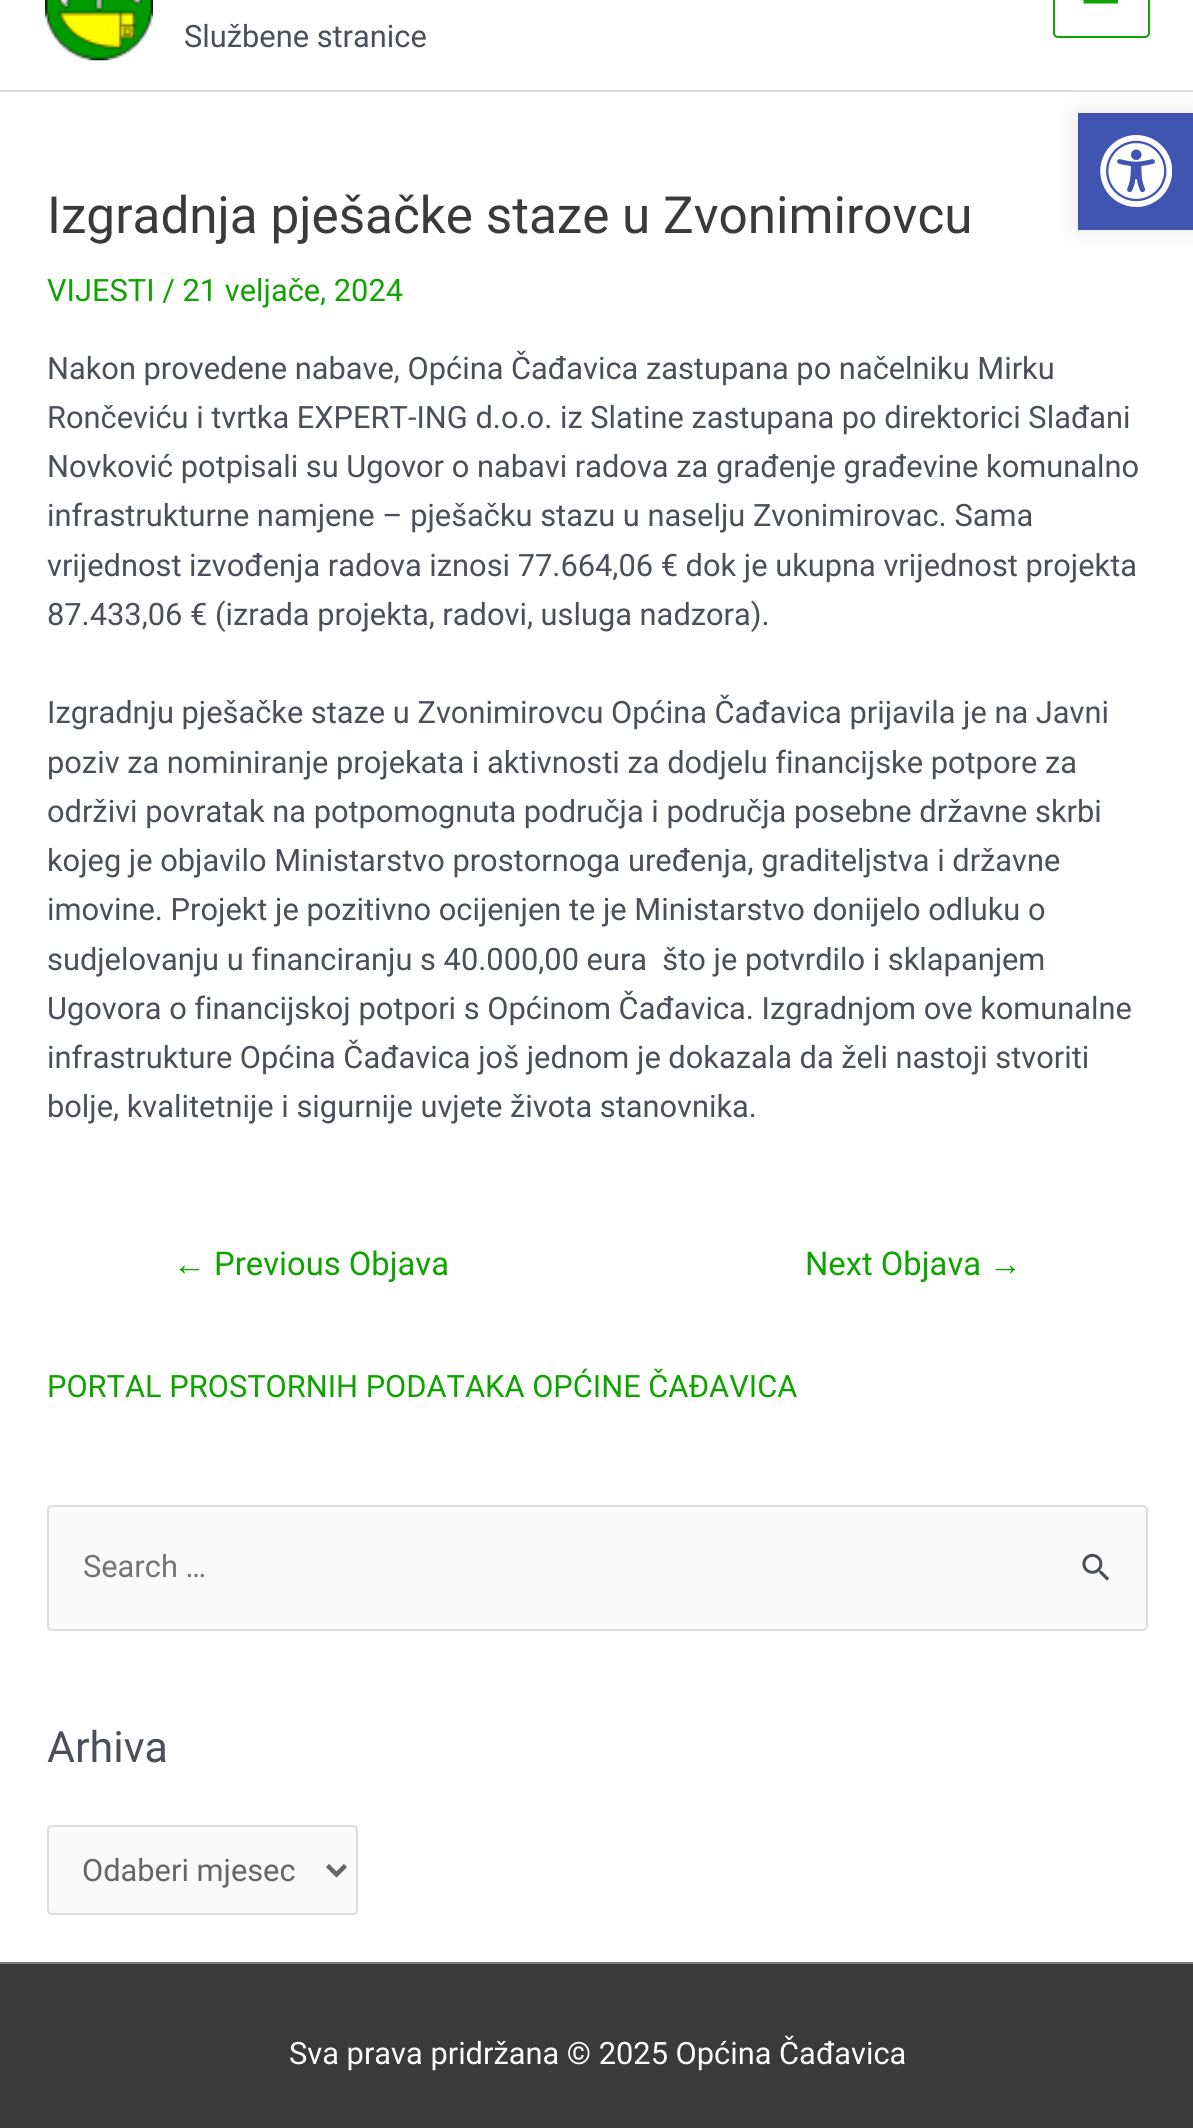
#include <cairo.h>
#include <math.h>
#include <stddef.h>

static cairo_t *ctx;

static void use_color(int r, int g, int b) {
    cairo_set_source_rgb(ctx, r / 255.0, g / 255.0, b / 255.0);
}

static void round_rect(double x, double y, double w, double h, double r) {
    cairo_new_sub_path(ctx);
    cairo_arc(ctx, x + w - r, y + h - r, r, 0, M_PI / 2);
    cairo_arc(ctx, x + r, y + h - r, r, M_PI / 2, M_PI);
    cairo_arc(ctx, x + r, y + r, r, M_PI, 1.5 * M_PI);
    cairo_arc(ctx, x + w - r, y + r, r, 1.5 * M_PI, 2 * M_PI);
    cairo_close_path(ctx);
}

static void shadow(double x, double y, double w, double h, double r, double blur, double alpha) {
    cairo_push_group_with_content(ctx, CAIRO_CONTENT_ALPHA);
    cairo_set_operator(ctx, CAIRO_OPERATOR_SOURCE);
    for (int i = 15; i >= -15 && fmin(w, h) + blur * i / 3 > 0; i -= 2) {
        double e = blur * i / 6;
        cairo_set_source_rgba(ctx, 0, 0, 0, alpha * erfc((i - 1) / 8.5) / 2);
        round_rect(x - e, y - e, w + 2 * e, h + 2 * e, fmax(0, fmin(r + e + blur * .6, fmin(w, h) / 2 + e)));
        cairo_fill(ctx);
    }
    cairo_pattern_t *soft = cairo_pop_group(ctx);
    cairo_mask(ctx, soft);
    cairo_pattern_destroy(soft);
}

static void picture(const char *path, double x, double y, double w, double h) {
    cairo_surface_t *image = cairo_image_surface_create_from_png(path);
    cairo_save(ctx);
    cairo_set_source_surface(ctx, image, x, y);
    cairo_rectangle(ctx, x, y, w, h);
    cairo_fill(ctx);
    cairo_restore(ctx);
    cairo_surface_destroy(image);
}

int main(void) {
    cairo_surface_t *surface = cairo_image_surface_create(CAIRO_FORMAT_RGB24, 1193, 2128);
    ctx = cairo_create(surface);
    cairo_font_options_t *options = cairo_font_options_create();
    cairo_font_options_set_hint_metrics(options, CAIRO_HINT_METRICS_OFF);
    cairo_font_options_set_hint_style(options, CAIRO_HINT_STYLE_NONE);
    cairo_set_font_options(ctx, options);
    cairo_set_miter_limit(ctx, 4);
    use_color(255, 255, 255);
    cairo_paint(ctx);
    use_color(221, 221, 221);
    cairo_rectangle(ctx, 0, 90, 1193, 2);
    cairo_fill(ctx);
    picture("img1.png", 45, 0, 108, 61);
    cairo_select_font_face(ctx, "Roboto", CAIRO_FONT_SLANT_NORMAL, CAIRO_FONT_WEIGHT_NORMAL);
    cairo_set_font_size(ctx, 30.8);
    use_color(75, 79, 88);
    cairo_move_to(ctx, 184, 47);
    cairo_show_text(ctx, "Službene stranice");
    round_rect(1054, -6, 95, 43, 4);
    use_color(15, 163, 1);
    cairo_stroke(ctx);
    cairo_new_path(ctx);
    cairo_move_to(ctx, 1083.5, -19.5);
    cairo_line_to(ctx, 1118, -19.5);
    cairo_line_to(ctx, 1118, -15.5);
    cairo_line_to(ctx, 1083.5, -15.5);
    cairo_close_path(ctx);
    cairo_move_to(ctx, 1083.5, -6);
    cairo_line_to(ctx, 1083.5, -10);
    cairo_line_to(ctx, 1118, -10);
    cairo_line_to(ctx, 1118, -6);
    cairo_close_path(ctx);
    cairo_move_to(ctx, 1083.5, 3.5);
    cairo_line_to(ctx, 1083.5, -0.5);
    cairo_line_to(ctx, 1118, -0.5);
    cairo_line_to(ctx, 1118, 3.5);
    cairo_close_path(ctx);
    cairo_fill(ctx);
    cairo_set_font_size(ctx, 51.25);
    use_color(58, 58, 58);
    cairo_move_to(ctx, 47, 233);
    cairo_show_text(ctx, "Izgradnja pješačke staze u Zvonimirovcu");
    cairo_set_font_size(ctx, 30.8);
    use_color(15, 163, 1);
    cairo_move_to(ctx, 47, 301);
    cairo_show_text(ctx, "VIJESTI / 21 veljače, 2024");
    use_color(75, 79, 88);
    cairo_move_to(ctx, 47, 379);
    cairo_show_text(ctx, "Nakon provedene nabave, Općina Čađavica zastupana po načelniku Mirku");
    cairo_move_to(ctx, 47, 428);
    cairo_show_text(ctx, "Rončeviću i tvrtka EXPERT-ING d.o.o. iz Slatine zastupana po direktorici Slađani");
    cairo_move_to(ctx, 47, 477);
    cairo_show_text(ctx, "Novković potpisali su Ugovor o nabavi radova za građenje građevine komunalno");
    cairo_move_to(ctx, 47, 526);
    cairo_show_text(ctx, "infrastrukturne namjene – pješačku stazu u naselju Zvonimirovac. Sama");
    cairo_move_to(ctx, 47, 576);
    cairo_show_text(ctx, "vrijednost izvođenja radova iznosi 77.664,06 € dok je ukupna vrijednost projekta");
    cairo_move_to(ctx, 47, 625);
    cairo_show_text(ctx, "87.433,06 € (izrada projekta, radovi, usluga nadzora).");
    cairo_move_to(ctx, 47, 723);
    cairo_show_text(ctx, "Izgradnju pješačke staze u Zvonimirovcu Općina Čađavica prijavila je na Javni");
    cairo_move_to(ctx, 47, 773);
    cairo_show_text(ctx, "poziv za nominiranje projekata i aktivnosti za dodjelu financijske potpore za");
    cairo_move_to(ctx, 47, 822);
    cairo_show_text(ctx, "održivi povratak na potpomognuta područja i područja posebne državne skrbi");
    cairo_move_to(ctx, 47, 871);
    cairo_show_text(ctx, "kojeg je objavilo Ministarstvo prostornoga uređenja, graditeljstva i državne");
    cairo_move_to(ctx, 47, 920);
    cairo_show_text(ctx, "imovine. Projekt je pozitivno ocijenjen te je Ministarstvo donijelo odluku o");
    cairo_move_to(ctx, 47, 970);
    cairo_show_text(ctx, "sudjelovanju u financiranju s 40.000,00 eura  što je potvrdilo i sklapanjem");
    cairo_move_to(ctx, 47, 1019);
    cairo_show_text(ctx, "Ugovora o financijskoj potpori s Općinom Čađavica. Izgradnjom ove komunalne");
    cairo_move_to(ctx, 47, 1068);
    cairo_show_text(ctx, "infrastrukture Općina Čađavica još jednom je dokazala da želi nastoji stvoriti");
    cairo_move_to(ctx, 47, 1117);
    cairo_show_text(ctx, "bolje, kvalitetnije i sigurnije uvjete života stanovnika.");
    cairo_select_font_face(ctx, "Liberation Sans", CAIRO_FONT_SLANT_NORMAL, CAIRO_FONT_WEIGHT_NORMAL);
    cairo_set_font_size(ctx, 32.75);
    use_color(15, 163, 1);
    cairo_move_to(ctx, 173, 1275);
    cairo_show_text(ctx, "←");
    cairo_select_font_face(ctx, "Roboto", CAIRO_FONT_SLANT_NORMAL, CAIRO_FONT_WEIGHT_NORMAL);
    cairo_move_to(ctx, 214, 1275);
    cairo_show_text(ctx, "Previous Objava");
    cairo_move_to(ctx, 805, 1275);
    cairo_show_text(ctx, "Next Objava");
    cairo_select_font_face(ctx, "Liberation Sans", CAIRO_FONT_SLANT_NORMAL, CAIRO_FONT_WEIGHT_NORMAL);
    cairo_move_to(ctx, 989, 1275);
    cairo_show_text(ctx, "→");
    cairo_select_font_face(ctx, "Roboto", CAIRO_FONT_SLANT_NORMAL, CAIRO_FONT_WEIGHT_NORMAL);
    cairo_set_font_size(ctx, 30.8);
    cairo_move_to(ctx, 47, 1397);
    cairo_show_text(ctx, "PORTAL PROSTORNIH PODATAKA OPĆINE ČAĐAVICA");
    use_color(250, 250, 250);
    round_rect(48, 1506, 1099, 124, 4);
    cairo_fill_preserve(ctx);
    use_color(221, 221, 221);
    cairo_stroke(ctx);
    use_color(117, 117, 117);
    cairo_move_to(ctx, 83, 1577);
    cairo_show_text(ctx, "Search …");
    picture("img2.png", 1082, 1553, 28, 28);
    cairo_set_font_size(ctx, 43);
    use_color(75, 79, 88);
    cairo_move_to(ctx, 47, 1762);
    cairo_show_text(ctx, "Arhiva");
    use_color(250, 250, 250);
    round_rect(48, 1826, 309, 88, 4);
    cairo_fill_preserve(ctx);
    use_color(221, 221, 221);
    cairo_stroke(ctx);
    cairo_new_path(ctx);
    cairo_move_to(ctx, 327.5, 1865.5);
    cairo_line_to(ctx, 336.5, 1874.5);
    cairo_line_to(ctx, 345.5, 1865.5);
    use_color(102, 102, 102);
    cairo_set_line_width(ctx, 4.5);
    cairo_stroke(ctx);
    cairo_set_font_size(ctx, 30.8);
    cairo_move_to(ctx, 82, 1881);
    cairo_show_text(ctx, "Odaberi mjesec");
    use_color(122, 122, 122);
    cairo_rectangle(ctx, 0, 1962, 1193, 2);
    cairo_fill(ctx);
    use_color(58, 58, 58);
    cairo_rectangle(ctx, 0, 1964, 1193, 164);
    cairo_fill(ctx);
    use_color(255, 255, 255);
    cairo_move_to(ctx, 289, 2064);
    cairo_show_text(ctx, "Sva prava pridržana © 2025 Općina Čađavica");
    use_color(0, 0, 0);
    shadow(1078, 113, 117, 117, 0, 11, 0.1);
    use_color(64, 84, 178);
    cairo_rectangle(ctx, 1078, 113, 115, 117);
    cairo_fill(ctx);
    picture("img3.png", 1100, 135, 72, 72);
    cairo_surface_write_to_png(surface, "result.png");
    cairo_font_options_destroy(options);
    cairo_destroy(ctx);
    cairo_surface_destroy(surface);
    return 0;
}
